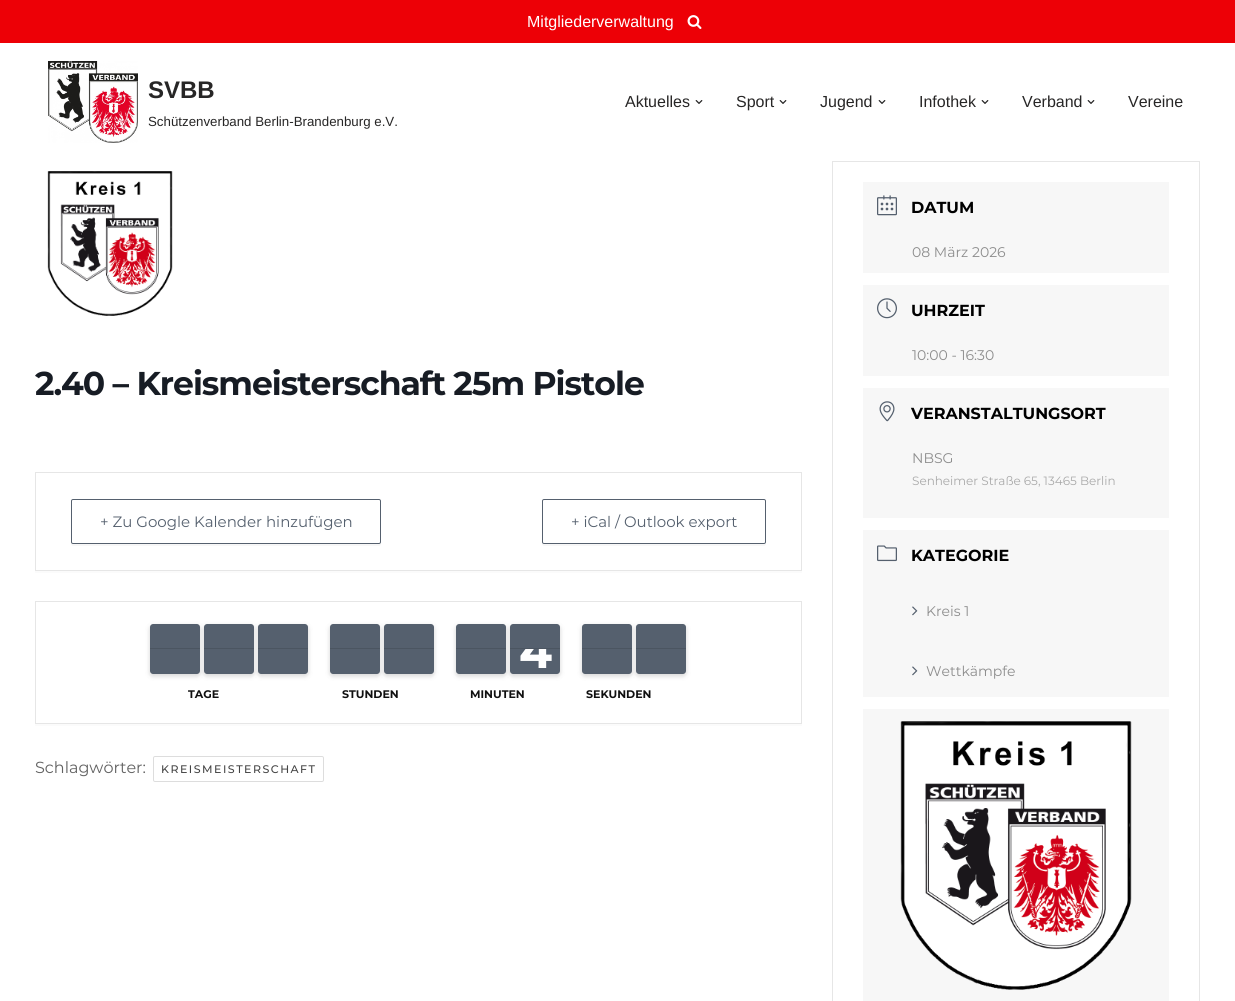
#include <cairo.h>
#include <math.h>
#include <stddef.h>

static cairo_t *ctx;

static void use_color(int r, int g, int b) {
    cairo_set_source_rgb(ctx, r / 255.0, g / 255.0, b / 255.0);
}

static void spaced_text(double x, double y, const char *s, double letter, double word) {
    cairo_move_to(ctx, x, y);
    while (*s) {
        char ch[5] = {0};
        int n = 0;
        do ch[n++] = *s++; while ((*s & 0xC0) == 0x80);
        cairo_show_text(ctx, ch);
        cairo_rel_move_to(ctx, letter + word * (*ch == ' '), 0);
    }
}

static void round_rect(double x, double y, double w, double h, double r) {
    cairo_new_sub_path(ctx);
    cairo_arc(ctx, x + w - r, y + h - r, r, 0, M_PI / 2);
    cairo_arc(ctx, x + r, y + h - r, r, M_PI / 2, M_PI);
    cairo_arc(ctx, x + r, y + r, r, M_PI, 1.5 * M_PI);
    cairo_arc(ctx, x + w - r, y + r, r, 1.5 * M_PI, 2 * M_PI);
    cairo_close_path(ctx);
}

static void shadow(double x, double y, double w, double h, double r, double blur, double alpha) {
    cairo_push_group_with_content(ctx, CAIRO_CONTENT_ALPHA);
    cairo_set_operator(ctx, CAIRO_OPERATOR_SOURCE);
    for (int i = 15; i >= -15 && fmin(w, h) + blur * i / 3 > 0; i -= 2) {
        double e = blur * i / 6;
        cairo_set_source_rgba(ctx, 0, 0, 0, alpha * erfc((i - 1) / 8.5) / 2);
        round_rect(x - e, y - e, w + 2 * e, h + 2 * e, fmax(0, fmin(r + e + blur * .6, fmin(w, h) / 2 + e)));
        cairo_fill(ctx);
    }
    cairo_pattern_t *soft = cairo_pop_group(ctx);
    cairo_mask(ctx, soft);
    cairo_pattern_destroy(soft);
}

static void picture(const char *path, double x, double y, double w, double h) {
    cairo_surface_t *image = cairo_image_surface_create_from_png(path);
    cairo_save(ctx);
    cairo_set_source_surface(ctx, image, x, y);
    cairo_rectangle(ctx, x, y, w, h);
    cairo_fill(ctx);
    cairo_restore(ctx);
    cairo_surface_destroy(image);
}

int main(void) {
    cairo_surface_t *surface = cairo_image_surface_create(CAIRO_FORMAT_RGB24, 1235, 1001);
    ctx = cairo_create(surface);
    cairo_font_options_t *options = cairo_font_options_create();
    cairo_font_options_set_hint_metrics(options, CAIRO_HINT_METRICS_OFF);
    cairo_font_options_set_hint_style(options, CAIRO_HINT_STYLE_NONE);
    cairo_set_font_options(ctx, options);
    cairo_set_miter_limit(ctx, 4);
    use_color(255, 255, 255);
    cairo_paint(ctx);
    use_color(237, 0, 6);
    cairo_rectangle(ctx, 0, 0, 1235, 43);
    cairo_fill(ctx);
    cairo_select_font_face(ctx, "Liberation Sans", CAIRO_FONT_SLANT_NORMAL, CAIRO_FONT_WEIGHT_NORMAL);
    cairo_set_font_size(ctx, 16);
    use_color(255, 255, 255);
    cairo_move_to(ctx, 527, 27);
    cairo_show_text(ctx, "Mitgliederverwaltung");
    picture("img1.png", 687, 15, 15, 14);
    picture("img2.png", 48, 61, 90, 82);
    cairo_select_font_face(ctx, "Liberation Sans", CAIRO_FONT_SLANT_NORMAL, CAIRO_FONT_WEIGHT_BOLD);
    cairo_set_font_size(ctx, 24);
    use_color(39, 38, 38);
    cairo_move_to(ctx, 148, 98);
    cairo_show_text(ctx, "SVBB");
    cairo_select_font_face(ctx, "Liberation Sans", CAIRO_FONT_SLANT_NORMAL, CAIRO_FONT_WEIGHT_NORMAL);
    cairo_set_font_size(ctx, 13.3);
    cairo_move_to(ctx, 148, 126);
    cairo_show_text(ctx, "Schützenverband Berlin-Brandenburg e.V.");
    cairo_set_font_size(ctx, 16);
    cairo_move_to(ctx, 625, 107);
    cairo_show_text(ctx, "Aktuelles");
    picture("img3.png", 695, 100, 8, 4);
    cairo_move_to(ctx, 736, 107);
    cairo_show_text(ctx, "Sport");
    picture("img3.png", 779, 100, 8, 4);
    cairo_move_to(ctx, 820, 107);
    cairo_show_text(ctx, "Jugend");
    picture("img3.png", 878, 100, 8, 4);
    cairo_move_to(ctx, 919, 107);
    cairo_show_text(ctx, "Infothek");
    picture("img3.png", 981, 100, 8, 4);
    cairo_move_to(ctx, 1022, 107);
    cairo_show_text(ctx, "Verband");
    picture("img3.png", 1087, 100, 8, 4);
    cairo_move_to(ctx, 1128, 107);
    cairo_show_text(ctx, "Vereine");
    picture("img4.png", 47, 171, 126, 145);
    cairo_select_font_face(ctx, "Montserrat", CAIRO_FONT_SLANT_NORMAL, CAIRO_FONT_WEIGHT_BOLD);
    cairo_set_font_size(ctx, 33);
    use_color(23, 28, 36);
    spaced_text(35, 395, "2.40 – Kreismeisterschaft 25m Pistole", -1, 0);
    use_color(251, 251, 251);
    cairo_rectangle(ctx, 35, 571, 767, 2);
    cairo_fill(ctx);
    cairo_rectangle(ctx, 35.5, 472.5, 766, 98);
    use_color(230, 230, 230);
    cairo_set_line_width(ctx, 1);
    cairo_stroke(ctx);
    use_color(247, 247, 247);
    cairo_new_path(ctx);
    cairo_move_to(ctx, 71, 542);
    cairo_line_to(ctx, 71, 544);
    cairo_curve_to(ctx, 71, 545, 72, 546, 73, 546);
    cairo_line_to(ctx, 379, 546);
    cairo_curve_to(ctx, 380, 546, 381, 545, 381, 544);
    cairo_line_to(ctx, 381, 542);
    cairo_curve_to(ctx, 381, 543, 380, 544, 379, 544);
    cairo_line_to(ctx, 73, 544);
    cairo_curve_to(ctx, 72, 544, 71, 543, 71, 542);
    cairo_close_path(ctx);
    cairo_fill(ctx);
    round_rect(71.5, 499.5, 309, 44, 1.5);
    use_color(85, 96, 110);
    cairo_stroke(ctx);
    cairo_select_font_face(ctx, "Montserrat", CAIRO_FONT_SLANT_NORMAL, CAIRO_FONT_WEIGHT_NORMAL);
    cairo_set_font_size(ctx, 15);
    cairo_move_to(ctx, 100, 527);
    cairo_show_text(ctx, "+ Zu Google Kalender hinzufügen");
    use_color(247, 247, 247);
    cairo_new_path(ctx);
    cairo_move_to(ctx, 542, 542);
    cairo_line_to(ctx, 542, 544);
    cairo_curve_to(ctx, 542, 545, 543, 546, 544, 546);
    cairo_line_to(ctx, 764, 546);
    cairo_curve_to(ctx, 765, 546, 766, 545, 766, 544);
    cairo_line_to(ctx, 766, 542);
    cairo_curve_to(ctx, 766, 543, 765, 544, 764, 544);
    cairo_line_to(ctx, 544, 544);
    cairo_curve_to(ctx, 543, 544, 542, 543, 542, 542);
    cairo_close_path(ctx);
    cairo_fill(ctx);
    round_rect(542.5, 499.5, 223, 44, 1.5);
    use_color(85, 96, 110);
    cairo_stroke(ctx);
    cairo_move_to(ctx, 571, 527);
    cairo_show_text(ctx, "+ iCal / Outlook export");
    use_color(251, 251, 251);
    cairo_rectangle(ctx, 35, 724, 767, 2);
    cairo_fill(ctx);
    cairo_rectangle(ctx, 35.5, 601.5, 766, 122);
    use_color(230, 230, 230);
    cairo_stroke(ctx);
    use_color(0, 0, 0);
    shadow(150, 626, 50, 50, 3, 2.5, 0.17);
    shadow(204, 626, 50, 50, 3, 2.5, 0.17);
    use_color(85, 96, 110);
    cairo_new_path(ctx);
    cairo_move_to(ctx, 153, 624);
    cairo_line_to(ctx, 197, 624);
    cairo_curve_to(ctx, 198.5, 624, 200, 625.5, 200, 627);
    cairo_line_to(ctx, 200, 649);
    cairo_line_to(ctx, 150, 649);
    cairo_line_to(ctx, 150, 627);
    cairo_curve_to(ctx, 150, 625.5, 151.5, 624, 153, 624);
    cairo_close_path(ctx);
    cairo_fill(ctx);
    cairo_set_source_rgba(ctx, 0, 0, 0, 0.12);
    cairo_rectangle(ctx, 150, 648, 50, 1);
    cairo_fill(ctx);
    use_color(85, 96, 110);
    cairo_new_path(ctx);
    cairo_move_to(ctx, 150, 649);
    cairo_line_to(ctx, 200, 649);
    cairo_line_to(ctx, 200, 671);
    cairo_curve_to(ctx, 200, 672.5, 198.5, 674, 197, 674);
    cairo_line_to(ctx, 153, 674);
    cairo_curve_to(ctx, 151.5, 674, 150, 672.5, 150, 671);
    cairo_close_path(ctx);
    cairo_fill(ctx);
    use_color(0, 0, 0);
    shadow(258, 626, 50, 50, 3, 2.5, 0.17);
    use_color(85, 96, 110);
    cairo_new_path(ctx);
    cairo_move_to(ctx, 207, 624);
    cairo_line_to(ctx, 251, 624);
    cairo_curve_to(ctx, 252.5, 624, 254, 625.5, 254, 627);
    cairo_line_to(ctx, 254, 649);
    cairo_line_to(ctx, 204, 649);
    cairo_line_to(ctx, 204, 627);
    cairo_curve_to(ctx, 204, 625.5, 205.5, 624, 207, 624);
    cairo_close_path(ctx);
    cairo_fill(ctx);
    cairo_set_source_rgba(ctx, 0, 0, 0, 0.12);
    cairo_rectangle(ctx, 204, 648, 50, 1);
    cairo_fill(ctx);
    use_color(85, 96, 110);
    cairo_new_path(ctx);
    cairo_move_to(ctx, 204, 649);
    cairo_line_to(ctx, 254, 649);
    cairo_line_to(ctx, 254, 671);
    cairo_curve_to(ctx, 254, 672.5, 252.5, 674, 251, 674);
    cairo_line_to(ctx, 207, 674);
    cairo_curve_to(ctx, 205.5, 674, 204, 672.5, 204, 671);
    cairo_close_path(ctx);
    cairo_fill(ctx);
    cairo_new_path(ctx);
    cairo_move_to(ctx, 261, 624);
    cairo_line_to(ctx, 305, 624);
    cairo_curve_to(ctx, 306.5, 624, 308, 625.5, 308, 627);
    cairo_line_to(ctx, 308, 649);
    cairo_line_to(ctx, 258, 649);
    cairo_line_to(ctx, 258, 627);
    cairo_curve_to(ctx, 258, 625.5, 259.5, 624, 261, 624);
    cairo_close_path(ctx);
    cairo_fill(ctx);
    cairo_set_source_rgba(ctx, 0, 0, 0, 0.12);
    cairo_rectangle(ctx, 258, 648, 50, 1);
    cairo_fill(ctx);
    use_color(85, 96, 110);
    cairo_new_path(ctx);
    cairo_move_to(ctx, 258, 649);
    cairo_line_to(ctx, 308, 649);
    cairo_line_to(ctx, 308, 671);
    cairo_curve_to(ctx, 308, 672.5, 306.5, 674, 305, 674);
    cairo_line_to(ctx, 261, 674);
    cairo_curve_to(ctx, 259.5, 674, 258, 672.5, 258, 671);
    cairo_close_path(ctx);
    cairo_fill(ctx);
    use_color(0, 0, 0);
    shadow(330, 626, 50, 50, 3, 2.5, 0.17);
    shadow(384, 626, 50, 50, 3, 2.5, 0.17);
    use_color(85, 96, 110);
    cairo_new_path(ctx);
    cairo_move_to(ctx, 333, 624);
    cairo_line_to(ctx, 377, 624);
    cairo_curve_to(ctx, 378.5, 624, 380, 625.5, 380, 627);
    cairo_line_to(ctx, 380, 649);
    cairo_line_to(ctx, 330, 649);
    cairo_line_to(ctx, 330, 627);
    cairo_curve_to(ctx, 330, 625.5, 331.5, 624, 333, 624);
    cairo_close_path(ctx);
    cairo_fill(ctx);
    cairo_set_source_rgba(ctx, 0, 0, 0, 0.12);
    cairo_rectangle(ctx, 330, 648, 50, 1);
    cairo_fill(ctx);
    use_color(85, 96, 110);
    cairo_new_path(ctx);
    cairo_move_to(ctx, 330, 649);
    cairo_line_to(ctx, 380, 649);
    cairo_line_to(ctx, 380, 671);
    cairo_curve_to(ctx, 380, 672.5, 378.5, 674, 377, 674);
    cairo_line_to(ctx, 333, 674);
    cairo_curve_to(ctx, 331.5, 674, 330, 672.5, 330, 671);
    cairo_close_path(ctx);
    cairo_fill(ctx);
    cairo_new_path(ctx);
    cairo_move_to(ctx, 387, 624);
    cairo_line_to(ctx, 431, 624);
    cairo_curve_to(ctx, 432.5, 624, 434, 625.5, 434, 627);
    cairo_line_to(ctx, 434, 649);
    cairo_line_to(ctx, 384, 649);
    cairo_line_to(ctx, 384, 627);
    cairo_curve_to(ctx, 384, 625.5, 385.5, 624, 387, 624);
    cairo_close_path(ctx);
    cairo_fill(ctx);
    cairo_set_source_rgba(ctx, 0, 0, 0, 0.12);
    cairo_rectangle(ctx, 384, 648, 50, 1);
    cairo_fill(ctx);
    use_color(85, 96, 110);
    cairo_new_path(ctx);
    cairo_move_to(ctx, 384, 649);
    cairo_line_to(ctx, 434, 649);
    cairo_line_to(ctx, 434, 671);
    cairo_curve_to(ctx, 434, 672.5, 432.5, 674, 431, 674);
    cairo_line_to(ctx, 387, 674);
    cairo_curve_to(ctx, 385.5, 674, 384, 672.5, 384, 671);
    cairo_close_path(ctx);
    cairo_fill(ctx);
    use_color(0, 0, 0);
    shadow(456, 626, 50, 50, 3, 2.5, 0.17);
    shadow(510, 626, 50, 50, 3, 2.5, 0.17);
    use_color(85, 96, 110);
    cairo_new_path(ctx);
    cairo_move_to(ctx, 459, 624);
    cairo_line_to(ctx, 503, 624);
    cairo_curve_to(ctx, 504.5, 624, 506, 625.5, 506, 627);
    cairo_line_to(ctx, 506, 649);
    cairo_line_to(ctx, 456, 649);
    cairo_line_to(ctx, 456, 627);
    cairo_curve_to(ctx, 456, 625.5, 457.5, 624, 459, 624);
    cairo_close_path(ctx);
    cairo_fill(ctx);
    cairo_set_source_rgba(ctx, 0, 0, 0, 0.12);
    cairo_rectangle(ctx, 456, 648, 50, 1);
    cairo_fill(ctx);
    use_color(85, 96, 110);
    cairo_new_path(ctx);
    cairo_move_to(ctx, 456, 649);
    cairo_line_to(ctx, 506, 649);
    cairo_line_to(ctx, 506, 671);
    cairo_curve_to(ctx, 506, 672.5, 504.5, 674, 503, 674);
    cairo_line_to(ctx, 459, 674);
    cairo_curve_to(ctx, 457.5, 674, 456, 672.5, 456, 671);
    cairo_close_path(ctx);
    cairo_fill(ctx);
    cairo_new_path(ctx);
    cairo_move_to(ctx, 513, 624);
    cairo_line_to(ctx, 557, 624);
    cairo_curve_to(ctx, 558.5, 624, 560, 625.5, 560, 627);
    cairo_line_to(ctx, 560, 649);
    cairo_line_to(ctx, 510, 649);
    cairo_line_to(ctx, 510, 627);
    cairo_curve_to(ctx, 510, 625.5, 511.5, 624, 513, 624);
    cairo_close_path(ctx);
    cairo_fill(ctx);
    cairo_set_source_rgba(ctx, 0, 0, 0, 0.12);
    cairo_rectangle(ctx, 510, 648, 50, 1);
    cairo_fill(ctx);
    use_color(85, 96, 110);
    cairo_new_path(ctx);
    cairo_move_to(ctx, 510, 649);
    cairo_line_to(ctx, 560, 649);
    cairo_line_to(ctx, 560, 671);
    cairo_curve_to(ctx, 560, 672.5, 558.5, 674, 557, 674);
    cairo_line_to(ctx, 513, 674);
    cairo_curve_to(ctx, 511.5, 674, 510, 672.5, 510, 671);
    cairo_close_path(ctx);
    cairo_fill(ctx);
    cairo_save(ctx);
    cairo_new_path(ctx);
    cairo_move_to(ctx, 510, 649);
    cairo_line_to(ctx, 560, 649);
    cairo_line_to(ctx, 560, 671);
    cairo_curve_to(ctx, 560, 672.5, 558.5, 674, 557, 674);
    cairo_line_to(ctx, 513, 674);
    cairo_curve_to(ctx, 511.5, 674, 510, 672.5, 510, 671);
    cairo_close_path(ctx);
    cairo_clip(ctx);
    cairo_select_font_face(ctx, "Montserrat", CAIRO_FONT_SLANT_NORMAL, CAIRO_FONT_WEIGHT_BOLD);
    cairo_set_font_size(ctx, 48);
    use_color(255, 255, 255);
    cairo_move_to(ctx, 519, 668);
    cairo_show_text(ctx, "4");
    cairo_restore(ctx);
    use_color(0, 0, 0);
    shadow(582, 626, 50, 50, 3, 2.5, 0.17);
    shadow(636, 626, 50, 50, 3, 2.5, 0.17);
    use_color(85, 96, 110);
    cairo_new_path(ctx);
    cairo_move_to(ctx, 585, 624);
    cairo_line_to(ctx, 629, 624);
    cairo_curve_to(ctx, 630.5, 624, 632, 625.5, 632, 627);
    cairo_line_to(ctx, 632, 649);
    cairo_line_to(ctx, 582, 649);
    cairo_line_to(ctx, 582, 627);
    cairo_curve_to(ctx, 582, 625.5, 583.5, 624, 585, 624);
    cairo_close_path(ctx);
    cairo_fill(ctx);
    cairo_set_source_rgba(ctx, 0, 0, 0, 0.12);
    cairo_rectangle(ctx, 582, 648, 50, 1);
    cairo_fill(ctx);
    use_color(85, 96, 110);
    cairo_new_path(ctx);
    cairo_move_to(ctx, 582, 649);
    cairo_line_to(ctx, 632, 649);
    cairo_line_to(ctx, 632, 671);
    cairo_curve_to(ctx, 632, 672.5, 630.5, 674, 629, 674);
    cairo_line_to(ctx, 585, 674);
    cairo_curve_to(ctx, 583.5, 674, 582, 672.5, 582, 671);
    cairo_close_path(ctx);
    cairo_fill(ctx);
    cairo_new_path(ctx);
    cairo_move_to(ctx, 639, 624);
    cairo_line_to(ctx, 683, 624);
    cairo_curve_to(ctx, 684.5, 624, 686, 625.5, 686, 627);
    cairo_line_to(ctx, 686, 649);
    cairo_line_to(ctx, 636, 649);
    cairo_line_to(ctx, 636, 627);
    cairo_curve_to(ctx, 636, 625.5, 637.5, 624, 639, 624);
    cairo_close_path(ctx);
    cairo_fill(ctx);
    cairo_set_source_rgba(ctx, 0, 0, 0, 0.12);
    cairo_rectangle(ctx, 636, 648, 50, 1);
    cairo_fill(ctx);
    use_color(85, 96, 110);
    cairo_new_path(ctx);
    cairo_move_to(ctx, 636, 649);
    cairo_line_to(ctx, 686, 649);
    cairo_line_to(ctx, 686, 671);
    cairo_curve_to(ctx, 686, 672.5, 684.5, 674, 683, 674);
    cairo_line_to(ctx, 639, 674);
    cairo_curve_to(ctx, 637.5, 674, 636, 672.5, 636, 671);
    cairo_close_path(ctx);
    cairo_fill(ctx);
    cairo_select_font_face(ctx, "Montserrat", CAIRO_FONT_SLANT_NORMAL, CAIRO_FONT_WEIGHT_BOLD);
    cairo_set_font_size(ctx, 11);
    use_color(16, 16, 16);
    cairo_move_to(ctx, 188, 698);
    cairo_show_text(ctx, "TAGE");
    cairo_move_to(ctx, 342, 698);
    cairo_show_text(ctx, "STUNDEN");
    cairo_move_to(ctx, 470, 698);
    cairo_show_text(ctx, "MINUTEN");
    cairo_move_to(ctx, 586, 698);
    cairo_show_text(ctx, "SEKUNDEN");
    cairo_select_font_face(ctx, "Montserrat", CAIRO_FONT_SLANT_NORMAL, CAIRO_FONT_WEIGHT_NORMAL);
    cairo_set_font_size(ctx, 16);
    use_color(98, 98, 98);
    cairo_move_to(ctx, 35, 773);
    cairo_show_text(ctx, "Schlagwörter:");
    round_rect(153.5, 756.5, 170, 25, 1.5);
    use_color(221, 221, 221);
    cairo_stroke(ctx);
    cairo_select_font_face(ctx, "Montserrat Medium", CAIRO_FONT_SLANT_NORMAL, CAIRO_FONT_WEIGHT_NORMAL);
    cairo_set_font_size(ctx, 11);
    use_color(68, 68, 68);
    spaced_text(161, 773, "KREISMEISTERSCHAFT", 1.5, 0);
    cairo_rectangle(ctx, 832.5, 161.5, 367, 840);
    use_color(230, 230, 230);
    cairo_stroke(ctx);
    use_color(247, 247, 247);
    cairo_rectangle(ctx, 863, 182, 306, 91);
    cairo_fill(ctx);
    picture("img5.png", 877, 195, 20, 21);
    cairo_select_font_face(ctx, "Montserrat", CAIRO_FONT_SLANT_NORMAL, CAIRO_FONT_WEIGHT_BOLD);
    cairo_set_font_size(ctx, 16);
    use_color(0, 0, 0);
    cairo_move_to(ctx, 911, 213);
    cairo_show_text(ctx, "DATUM");
    cairo_select_font_face(ctx, "Montserrat", CAIRO_FONT_SLANT_NORMAL, CAIRO_FONT_WEIGHT_NORMAL);
    cairo_set_font_size(ctx, 14);
    use_color(141, 141, 141);
    cairo_move_to(ctx, 912, 257);
    cairo_show_text(ctx, "08 März 2026");
    use_color(247, 247, 247);
    cairo_rectangle(ctx, 863, 285, 306, 91);
    cairo_fill(ctx);
    picture("img6.png", 877, 298, 20, 21);
    cairo_select_font_face(ctx, "Montserrat", CAIRO_FONT_SLANT_NORMAL, CAIRO_FONT_WEIGHT_BOLD);
    cairo_set_font_size(ctx, 16);
    use_color(0, 0, 0);
    cairo_move_to(ctx, 911, 316);
    cairo_show_text(ctx, "UHRZEIT");
    cairo_select_font_face(ctx, "Montserrat", CAIRO_FONT_SLANT_NORMAL, CAIRO_FONT_WEIGHT_NORMAL);
    cairo_set_font_size(ctx, 14);
    use_color(141, 141, 141);
    cairo_move_to(ctx, 912, 360);
    cairo_show_text(ctx, "10:00 - 16:30");
    use_color(247, 247, 247);
    cairo_rectangle(ctx, 863, 388, 306, 130);
    cairo_fill(ctx);
    picture("img7.png", 879, 401, 16, 21);
    cairo_select_font_face(ctx, "Montserrat", CAIRO_FONT_SLANT_NORMAL, CAIRO_FONT_WEIGHT_BOLD);
    cairo_set_font_size(ctx, 16);
    use_color(0, 0, 0);
    cairo_move_to(ctx, 911, 419);
    cairo_show_text(ctx, "VERANSTALTUNGSORT");
    cairo_select_font_face(ctx, "Montserrat", CAIRO_FONT_SLANT_NORMAL, CAIRO_FONT_WEIGHT_NORMAL);
    cairo_set_font_size(ctx, 14);
    use_color(141, 141, 141);
    cairo_move_to(ctx, 912, 463);
    cairo_show_text(ctx, "NBSG");
    cairo_set_font_size(ctx, 12);
    use_color(169, 169, 169);
    cairo_move_to(ctx, 912, 485);
    cairo_show_text(ctx, "Senheimer Straße 65, 13465 Berlin");
    use_color(247, 247, 247);
    cairo_rectangle(ctx, 863, 530, 306, 167);
    cairo_fill(ctx);
    picture("img8.png", 877, 545, 20, 17);
    cairo_select_font_face(ctx, "Montserrat", CAIRO_FONT_SLANT_NORMAL, CAIRO_FONT_WEIGHT_BOLD);
    cairo_set_font_size(ctx, 16);
    use_color(0, 0, 0);
    cairo_move_to(ctx, 911, 561);
    cairo_show_text(ctx, "KATEGORIE");
    picture("img9.png", 912, 606, 6, 10);
    cairo_select_font_face(ctx, "Montserrat", CAIRO_FONT_SLANT_NORMAL, CAIRO_FONT_WEIGHT_NORMAL);
    cairo_set_font_size(ctx, 14);
    use_color(141, 141, 141);
    cairo_move_to(ctx, 926, 616);
    cairo_show_text(ctx, "Kreis 1");
    picture("img9.png", 912, 666, 6, 10);
    cairo_move_to(ctx, 926, 676);
    cairo_show_text(ctx, "Wettkämpfe");
    use_color(247, 247, 247);
    cairo_rectangle(ctx, 863, 709, 306, 292);
    cairo_fill(ctx);
    picture("img10.png", 900, 721, 232, 269);
    cairo_surface_write_to_png(surface, "result.png");
    cairo_font_options_destroy(options);
    cairo_destroy(ctx);
    cairo_surface_destroy(surface);
    return 0;
}
